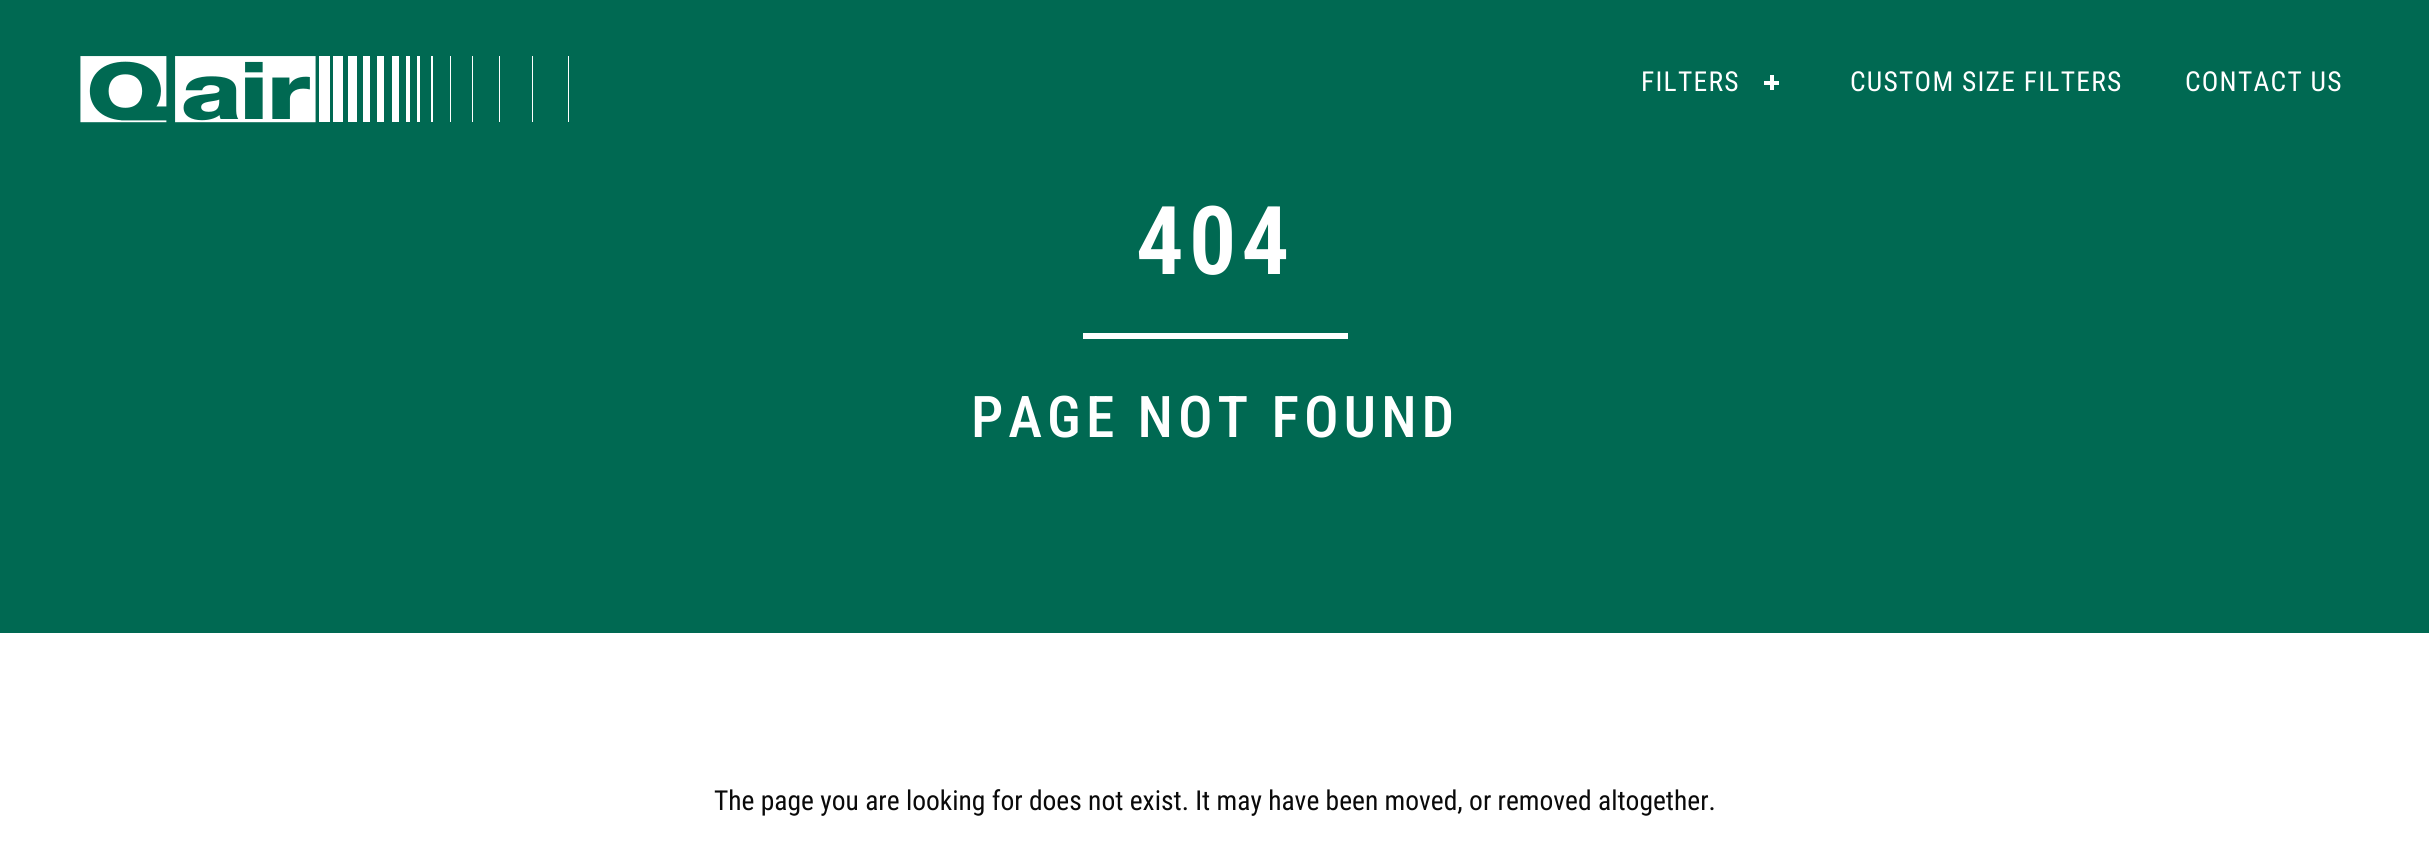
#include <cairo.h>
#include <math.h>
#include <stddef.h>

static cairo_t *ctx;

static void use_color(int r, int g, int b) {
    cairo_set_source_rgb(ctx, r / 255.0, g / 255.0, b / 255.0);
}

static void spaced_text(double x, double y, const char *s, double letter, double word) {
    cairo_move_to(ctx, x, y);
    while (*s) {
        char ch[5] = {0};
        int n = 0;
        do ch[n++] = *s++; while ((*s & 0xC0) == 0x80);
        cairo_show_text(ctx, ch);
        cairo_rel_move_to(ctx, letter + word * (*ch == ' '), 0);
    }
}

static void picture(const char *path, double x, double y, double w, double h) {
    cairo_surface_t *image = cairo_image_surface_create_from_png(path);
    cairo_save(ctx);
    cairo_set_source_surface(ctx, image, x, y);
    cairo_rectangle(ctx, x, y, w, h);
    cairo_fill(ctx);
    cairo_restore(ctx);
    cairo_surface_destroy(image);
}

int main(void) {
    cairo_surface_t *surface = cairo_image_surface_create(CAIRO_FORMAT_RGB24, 2429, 845);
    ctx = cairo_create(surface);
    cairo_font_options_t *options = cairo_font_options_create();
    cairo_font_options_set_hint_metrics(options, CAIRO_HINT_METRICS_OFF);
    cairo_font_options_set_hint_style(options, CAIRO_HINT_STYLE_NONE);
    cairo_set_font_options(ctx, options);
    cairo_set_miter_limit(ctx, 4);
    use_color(255, 255, 255);
    cairo_paint(ctx);
    use_color(0, 105, 82);
    cairo_rectangle(ctx, 0, 0, 2429, 633);
    cairo_fill(ctx);
    picture("img1.png", 80, 56, 489, 67);
    cairo_select_font_face(ctx, "Roboto Condensed", CAIRO_FONT_SLANT_NORMAL, CAIRO_FONT_WEIGHT_NORMAL);
    cairo_set_font_size(ctx, 27.5);
    use_color(255, 255, 255);
    spaced_text(1641, 91, "FILTERS", 1.25, 0);
    cairo_rectangle(ctx, 1764, 81, 15, 4);
    cairo_fill(ctx);
    cairo_rectangle(ctx, 1770, 75, 4, 15);
    cairo_fill(ctx);
    spaced_text(1850, 91, "CUSTOM SIZE FILTERS", 1.25, 0);
    spaced_text(2185, 91, "CONTACT US", 1.25, 0);
    cairo_select_font_face(ctx, "Roboto Condensed SemiBold", CAIRO_FONT_SLANT_NORMAL, CAIRO_FONT_WEIGHT_NORMAL);
    cairo_set_font_size(ctx, 95);
    spaced_text(1136, 274, "404", 5, 0);
    cairo_rectangle(ctx, 1083, 333, 265, 6);
    cairo_fill(ctx);
    cairo_select_font_face(ctx, "Roboto Condensed Medium", CAIRO_FONT_SLANT_NORMAL, CAIRO_FONT_WEIGHT_NORMAL);
    cairo_set_font_size(ctx, 57.5);
    spaced_text(971, 437, "PAGE NOT FOUND", 5, 0);
    cairo_select_font_face(ctx, "Roboto Condensed", CAIRO_FONT_SLANT_NORMAL, CAIRO_FONT_WEIGHT_NORMAL);
    cairo_set_font_size(ctx, 27.5);
    use_color(10, 10, 10);
    cairo_move_to(ctx, 714, 810);
    cairo_show_text(ctx, "The page you are looking for does not exist. It may have been moved, or removed altogether.");
    cairo_surface_write_to_png(surface, "result.png");
    cairo_font_options_destroy(options);
    cairo_destroy(ctx);
    cairo_surface_destroy(surface);
    return 0;
}
